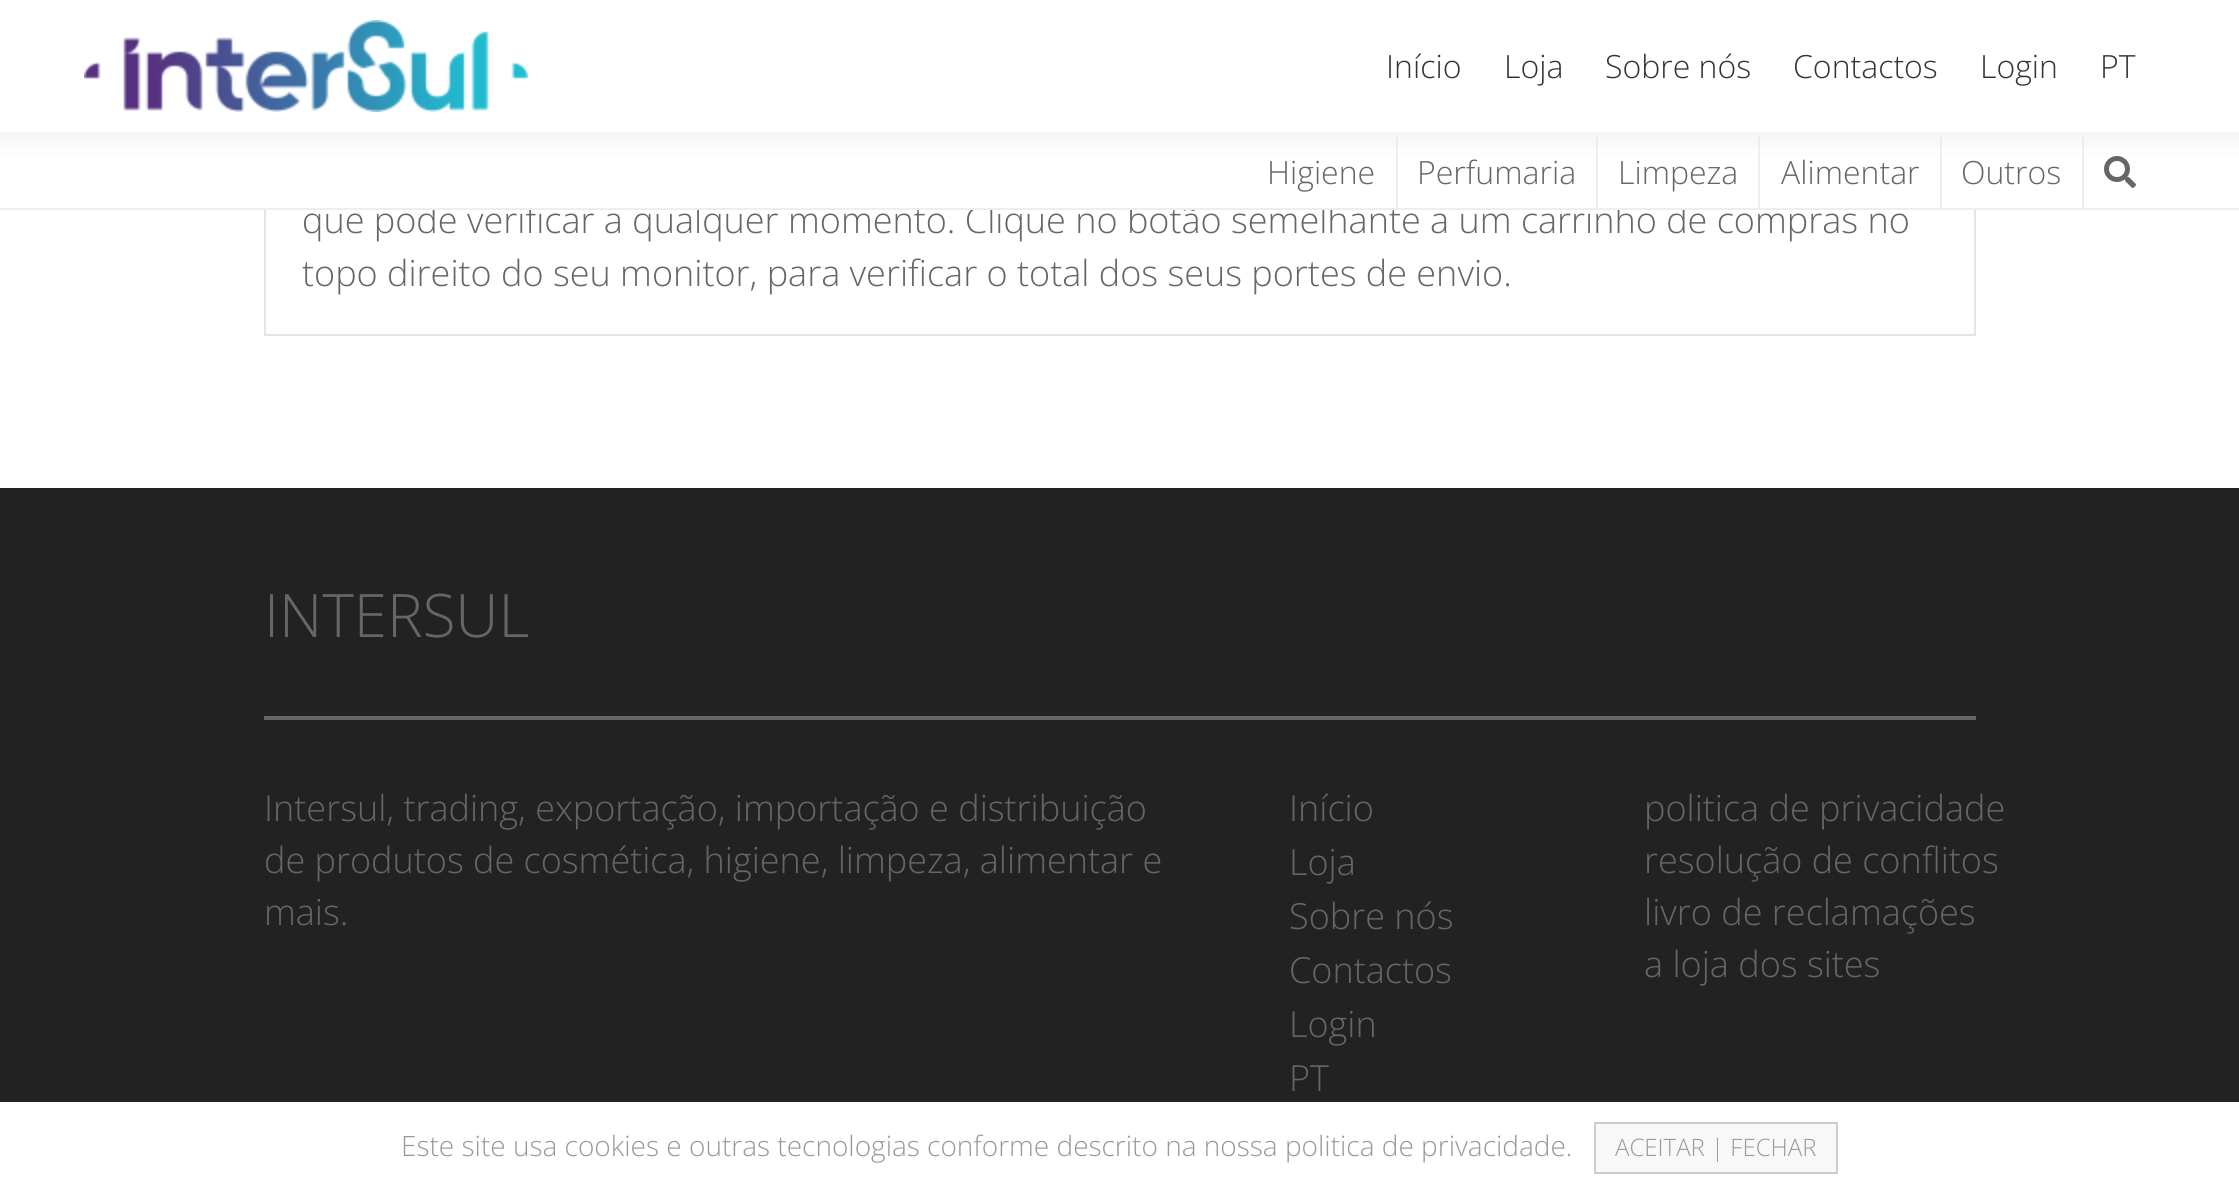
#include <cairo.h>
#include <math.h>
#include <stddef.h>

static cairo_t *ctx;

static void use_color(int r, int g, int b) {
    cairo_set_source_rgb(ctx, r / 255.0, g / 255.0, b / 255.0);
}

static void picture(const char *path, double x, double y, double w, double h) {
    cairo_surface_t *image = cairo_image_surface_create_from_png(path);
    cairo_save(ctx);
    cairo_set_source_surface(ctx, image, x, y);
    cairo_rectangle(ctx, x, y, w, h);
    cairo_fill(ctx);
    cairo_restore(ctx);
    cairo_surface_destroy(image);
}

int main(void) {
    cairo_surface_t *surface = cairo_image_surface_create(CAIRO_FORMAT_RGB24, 2239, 1188);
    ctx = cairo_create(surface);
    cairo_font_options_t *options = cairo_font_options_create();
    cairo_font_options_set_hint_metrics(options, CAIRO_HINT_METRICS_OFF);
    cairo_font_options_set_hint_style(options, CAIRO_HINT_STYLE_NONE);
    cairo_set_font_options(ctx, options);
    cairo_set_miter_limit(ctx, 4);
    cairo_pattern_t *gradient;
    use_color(255, 255, 255);
    cairo_paint(ctx);
    cairo_rectangle(ctx, 265, 105, 1710, 230);
    use_color(229, 229, 229);
    cairo_stroke(ctx);
    use_color(255, 255, 255);
    cairo_rectangle(ctx, 264, 104, 1712, 28);
    cairo_fill(ctx);
    picture("img1.png", 84, 20, 444, 92);
    cairo_select_font_face(ctx, "Open Sans Light", CAIRO_FONT_SLANT_NORMAL, CAIRO_FONT_WEIGHT_NORMAL);
    cairo_set_font_size(ctx, 32);
    use_color(51, 51, 51);
    cairo_move_to(ctx, 1386, 78);
    cairo_show_text(ctx, "Início");
    cairo_move_to(ctx, 1504, 78);
    cairo_show_text(ctx, "Loja");
    cairo_move_to(ctx, 1605, 78);
    cairo_show_text(ctx, "Sobre nós");
    cairo_move_to(ctx, 1793, 78);
    cairo_show_text(ctx, "Contactos");
    cairo_move_to(ctx, 1980, 78);
    cairo_show_text(ctx, "Login");
    cairo_move_to(ctx, 2100, 78);
    cairo_show_text(ctx, "PT");
    cairo_set_font_size(ctx, 36);
    use_color(102, 102, 102);
    cairo_move_to(ctx, 302, 233);
    cairo_show_text(ctx, "que pode verificar a qualquer momento. Clique no botão semelhante a um carrinho de compras no");
    gradient = cairo_pattern_create_linear(1120, 208, 1120, 132);
    cairo_pattern_add_color_stop_rgba(gradient, 0.66, 1, 1, 1, 1);
    cairo_pattern_add_color_stop_rgba(gradient, 1, 0.961, 0.961, 0.961, 1);
    cairo_set_source(ctx, gradient);
    cairo_pattern_destroy(gradient);
    cairo_rectangle(ctx, 0, 132, 2239, 76);
    cairo_fill(ctx);
    use_color(238, 238, 238);
    cairo_rectangle(ctx, 0, 208, 2239, 2);
    cairo_fill(ctx);
    cairo_set_font_size(ctx, 32);
    use_color(102, 102, 102);
    cairo_move_to(ctx, 1267, 184);
    cairo_show_text(ctx, "Higiene");
    use_color(238, 238, 238);
    cairo_rectangle(ctx, 1396, 136, 2, 72);
    cairo_fill(ctx);
    use_color(102, 102, 102);
    cairo_move_to(ctx, 1417, 184);
    cairo_show_text(ctx, "Perfumaria");
    use_color(238, 238, 238);
    cairo_rectangle(ctx, 1596, 136, 2, 72);
    cairo_fill(ctx);
    use_color(102, 102, 102);
    cairo_move_to(ctx, 1618, 184);
    cairo_show_text(ctx, "Limpeza");
    use_color(238, 238, 238);
    cairo_rectangle(ctx, 1758, 136, 2, 72);
    cairo_fill(ctx);
    use_color(102, 102, 102);
    cairo_move_to(ctx, 1781, 184);
    cairo_show_text(ctx, "Alimentar");
    use_color(238, 238, 238);
    cairo_rectangle(ctx, 1940, 136, 2, 72);
    cairo_fill(ctx);
    use_color(102, 102, 102);
    cairo_move_to(ctx, 1961, 184);
    cairo_show_text(ctx, "Outros");
    use_color(238, 238, 238);
    cairo_rectangle(ctx, 2082, 136, 2, 72);
    cairo_fill(ctx);
    picture("img2.png", 2104, 156, 32, 32);
    cairo_set_font_size(ctx, 36);
    use_color(102, 102, 102);
    cairo_move_to(ctx, 302, 286);
    cairo_show_text(ctx, "topo direito do seu monitor, para verificar o total dos seus portes de envio.");
    use_color(34, 34, 34);
    cairo_rectangle(ctx, 0, 488, 2239, 614);
    cairo_fill(ctx);
    cairo_set_font_size(ctx, 60);
    use_color(102, 102, 102);
    cairo_move_to(ctx, 264, 637);
    cairo_show_text(ctx, "INTERSUL");
    cairo_rectangle(ctx, 264, 716, 1712, 4);
    cairo_fill(ctx);
    cairo_set_font_size(ctx, 36);
    cairo_move_to(ctx, 264, 821);
    cairo_show_text(ctx, "Intersul, trading, exportação, importação e distribuição");
    cairo_move_to(ctx, 264, 873);
    cairo_show_text(ctx, "de produtos de cosmética, higiene, limpeza, alimentar e");
    cairo_move_to(ctx, 264, 925);
    cairo_show_text(ctx, "mais.");
    cairo_move_to(ctx, 1289, 821);
    cairo_show_text(ctx, "Início");
    cairo_move_to(ctx, 1289, 875);
    cairo_show_text(ctx, "Loja");
    cairo_move_to(ctx, 1289, 929);
    cairo_show_text(ctx, "Sobre nós");
    cairo_move_to(ctx, 1289, 983);
    cairo_show_text(ctx, "Contactos");
    cairo_move_to(ctx, 1289, 1037);
    cairo_show_text(ctx, "Login");
    cairo_move_to(ctx, 1289, 1091);
    cairo_show_text(ctx, "PT");
    cairo_move_to(ctx, 1644, 821);
    cairo_show_text(ctx, "politica de privacidade");
    cairo_move_to(ctx, 1644, 873);
    cairo_show_text(ctx, "resolução de conflitos");
    cairo_move_to(ctx, 1644, 925);
    cairo_show_text(ctx, "livro de reclamações");
    cairo_move_to(ctx, 1644, 977);
    cairo_show_text(ctx, "a loja dos sites");
    cairo_set_font_size(ctx, 28);
    use_color(153, 153, 153);
    cairo_move_to(ctx, 401, 1156);
    cairo_show_text(ctx, "Este site usa cookies e outras tecnologias conforme descrito na nossa politica de privacidade.");
    use_color(248, 248, 248);
    cairo_rectangle(ctx, 1595, 1123, 242, 50);
    cairo_fill_preserve(ctx);
    use_color(204, 204, 204);
    cairo_stroke(ctx);
    cairo_set_font_size(ctx, 24);
    use_color(153, 153, 153);
    cairo_move_to(ctx, 1615, 1156);
    cairo_show_text(ctx, "ACEITAR | FECHAR");
    cairo_surface_write_to_png(surface, "result.png");
    cairo_font_options_destroy(options);
    cairo_destroy(ctx);
    cairo_surface_destroy(surface);
    return 0;
}
